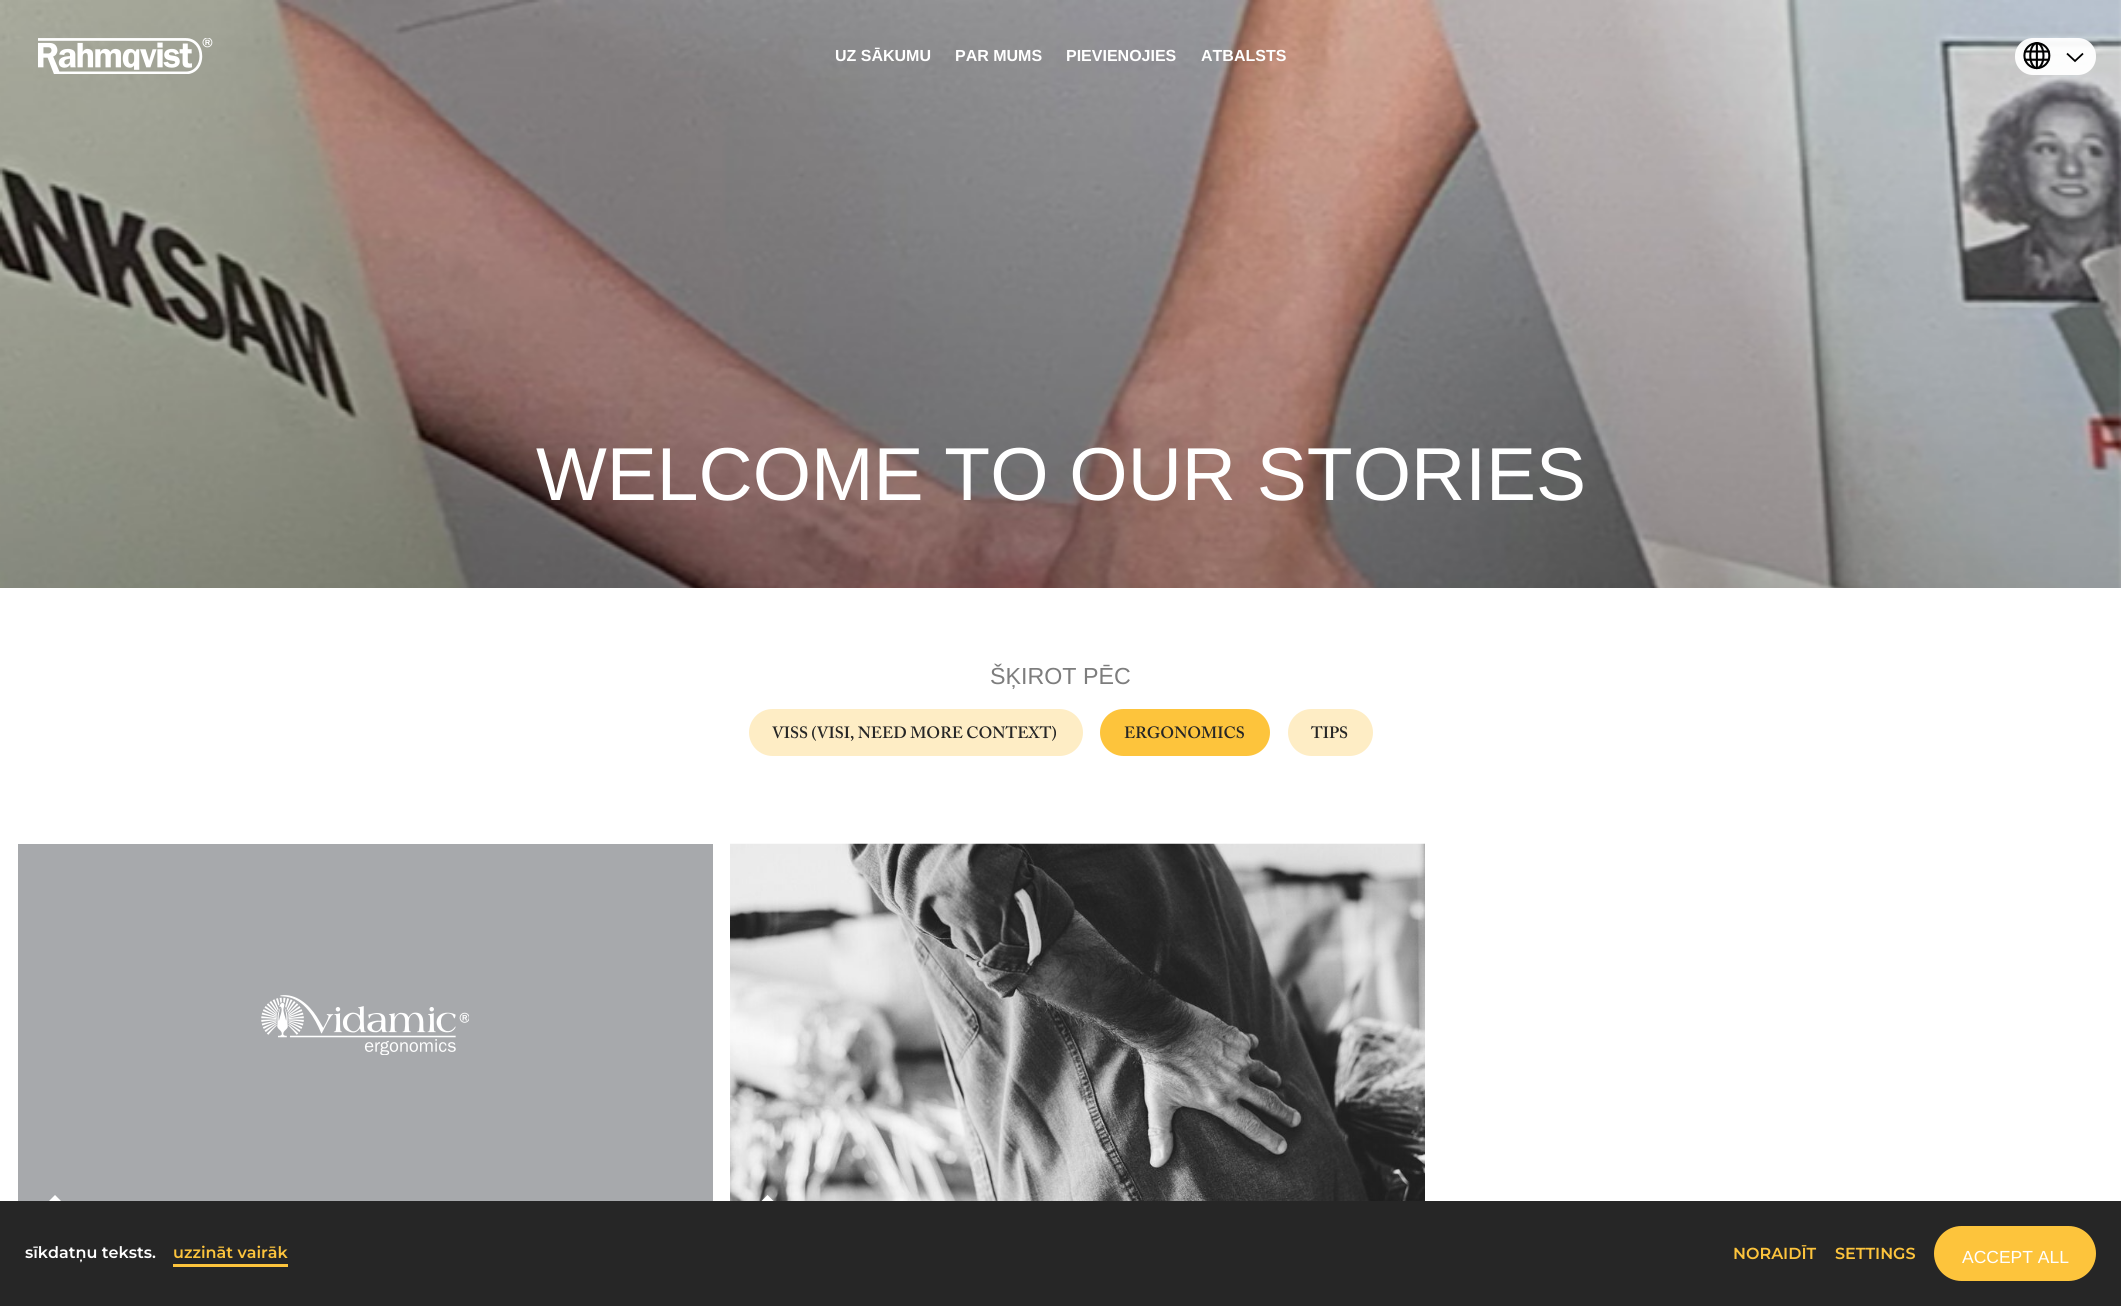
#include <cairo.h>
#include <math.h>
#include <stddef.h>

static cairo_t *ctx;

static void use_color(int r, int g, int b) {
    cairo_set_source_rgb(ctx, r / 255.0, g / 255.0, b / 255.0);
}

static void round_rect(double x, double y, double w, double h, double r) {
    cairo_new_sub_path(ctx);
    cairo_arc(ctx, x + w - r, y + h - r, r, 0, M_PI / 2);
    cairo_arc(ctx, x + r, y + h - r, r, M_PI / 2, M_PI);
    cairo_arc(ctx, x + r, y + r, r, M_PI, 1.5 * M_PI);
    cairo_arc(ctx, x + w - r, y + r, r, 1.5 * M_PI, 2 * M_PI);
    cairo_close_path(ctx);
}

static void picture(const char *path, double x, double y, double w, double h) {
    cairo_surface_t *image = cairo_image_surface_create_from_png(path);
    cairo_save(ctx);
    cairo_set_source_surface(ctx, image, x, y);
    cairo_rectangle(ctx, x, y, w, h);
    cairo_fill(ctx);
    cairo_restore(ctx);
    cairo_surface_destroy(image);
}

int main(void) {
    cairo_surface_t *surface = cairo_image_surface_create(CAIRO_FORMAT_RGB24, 2121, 1306);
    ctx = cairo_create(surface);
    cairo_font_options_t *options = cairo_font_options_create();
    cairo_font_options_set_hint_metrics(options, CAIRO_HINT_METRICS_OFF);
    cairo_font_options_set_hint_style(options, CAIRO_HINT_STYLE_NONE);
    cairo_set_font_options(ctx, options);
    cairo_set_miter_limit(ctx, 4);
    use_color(255, 255, 255);
    cairo_paint(ctx);
    picture("img3.png", 0, 0, 2121, 588);
    picture("img1.png", 38, 38, 175, 36);
    cairo_select_font_face(ctx, "Liberation Sans", CAIRO_FONT_SLANT_NORMAL, CAIRO_FONT_WEIGHT_BOLD);
    cairo_set_font_size(ctx, 16);
    use_color(255, 255, 255);
    cairo_move_to(ctx, 835, 61);
    cairo_show_text(ctx, "UZ SĀKUMU");
    cairo_move_to(ctx, 955, 61);
    cairo_show_text(ctx, "PAR MUMS");
    cairo_move_to(ctx, 1066, 61);
    cairo_show_text(ctx, "PIEVIENOJIES");
    cairo_move_to(ctx, 1201, 61);
    cairo_show_text(ctx, "ATBALSTS");
    cairo_set_source_rgba(ctx, 1, 1, 1, 0.95);
    round_rect(2015, 38, 81, 37, 18);
    cairo_fill(ctx);
    picture("img2.png", 2023, 42, 28, 28);
    cairo_new_path(ctx);
    cairo_move_to(ctx, 2067, 53.5);
    cairo_line_to(ctx, 2075, 61);
    cairo_line_to(ctx, 2083, 53.5);
    use_color(0, 0, 0);
    cairo_set_line_width(ctx, 1.8);
    cairo_stroke(ctx);
    cairo_select_font_face(ctx, "Liberation Sans", CAIRO_FONT_SLANT_NORMAL, CAIRO_FONT_WEIGHT_NORMAL);
    cairo_set_font_size(ctx, 75);
    use_color(255, 255, 255);
    cairo_move_to(ctx, 536, 500);
    cairo_show_text(ctx, "WELCOME TO OUR STORIES");
    cairo_set_font_size(ctx, 23.25);
    use_color(125, 125, 125);
    cairo_move_to(ctx, 990, 684);
    cairo_show_text(ctx, "ŠĶIROT PĒC");
    use_color(254, 237, 197);
    round_rect(749, 709, 334, 47, 23.5);
    cairo_fill(ctx);
    cairo_select_font_face(ctx, "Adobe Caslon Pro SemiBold", CAIRO_FONT_SLANT_NORMAL, CAIRO_FONT_WEIGHT_NORMAL);
    cairo_set_font_size(ctx, 16.25);
    use_color(38, 38, 38);
    cairo_move_to(ctx, 772, 738);
    cairo_show_text(ctx, "VISS (VISI, NEED MORE CONTEXT)");
    use_color(253, 196, 60);
    round_rect(1100, 709, 170, 47, 23.5);
    cairo_fill(ctx);
    use_color(38, 38, 38);
    cairo_move_to(ctx, 1124, 738);
    cairo_show_text(ctx, "ERGONOMICS");
    use_color(254, 237, 197);
    round_rect(1288, 709, 85, 47, 23.5);
    cairo_fill(ctx);
    use_color(38, 38, 38);
    cairo_move_to(ctx, 1311, 738);
    cairo_show_text(ctx, "TIPS");
    use_color(167, 169, 172);
    cairo_rectangle(ctx, 18, 844, 695, 357);
    cairo_fill(ctx);
    picture("img4.png", 261, 995, 208, 60);
    use_color(255, 255, 255);
    cairo_new_path(ctx);
    cairo_move_to(ctx, 65, 1205);
    cairo_line_to(ctx, 45, 1205);
    cairo_line_to(ctx, 55, 1195);
    cairo_close_path(ctx);
    cairo_fill(ctx);
    picture("img5.png", 730, 843, 695, 358);
    cairo_new_path(ctx);
    cairo_move_to(ctx, 777.5, 1205);
    cairo_line_to(ctx, 757.5, 1205);
    cairo_line_to(ctx, 767.5, 1195);
    cairo_close_path(ctx);
    cairo_fill(ctx);
    use_color(38, 38, 38);
    cairo_rectangle(ctx, 0, 1201, 2121, 105);
    cairo_fill(ctx);
    cairo_select_font_face(ctx, "Montserrat SemiBold", CAIRO_FONT_SLANT_NORMAL, CAIRO_FONT_WEIGHT_NORMAL);
    cairo_set_font_size(ctx, 16);
    use_color(255, 255, 255);
    cairo_move_to(ctx, 25, 1258);
    cairo_show_text(ctx, "sīkdatņu teksts.");
    use_color(253, 196, 60);
    cairo_move_to(ctx, 173, 1258);
    cairo_show_text(ctx, "uzzināt vairāk");
    cairo_rectangle(ctx, 173, 1264, 115, 3);
    cairo_fill(ctx);
    cairo_move_to(ctx, 1733, 1259);
    cairo_show_text(ctx, "NORAIDĪT");
    cairo_move_to(ctx, 1835, 1259);
    cairo_show_text(ctx, "SETTINGS");
    round_rect(1935.5, 1227.5, 159, 52, 26);
    cairo_fill_preserve(ctx);
    cairo_set_line_width(ctx, 3);
    cairo_stroke(ctx);
    cairo_select_font_face(ctx, "Liberation Sans", CAIRO_FONT_SLANT_NORMAL, CAIRO_FONT_WEIGHT_NORMAL);
    cairo_set_font_size(ctx, 17.5);
    use_color(255, 255, 255);
    cairo_move_to(ctx, 1962, 1263);
    cairo_show_text(ctx, "ACCEPT ALL");
    cairo_surface_write_to_png(surface, "result.png");
    cairo_font_options_destroy(options);
    cairo_destroy(ctx);
    cairo_surface_destroy(surface);
    return 0;
}
